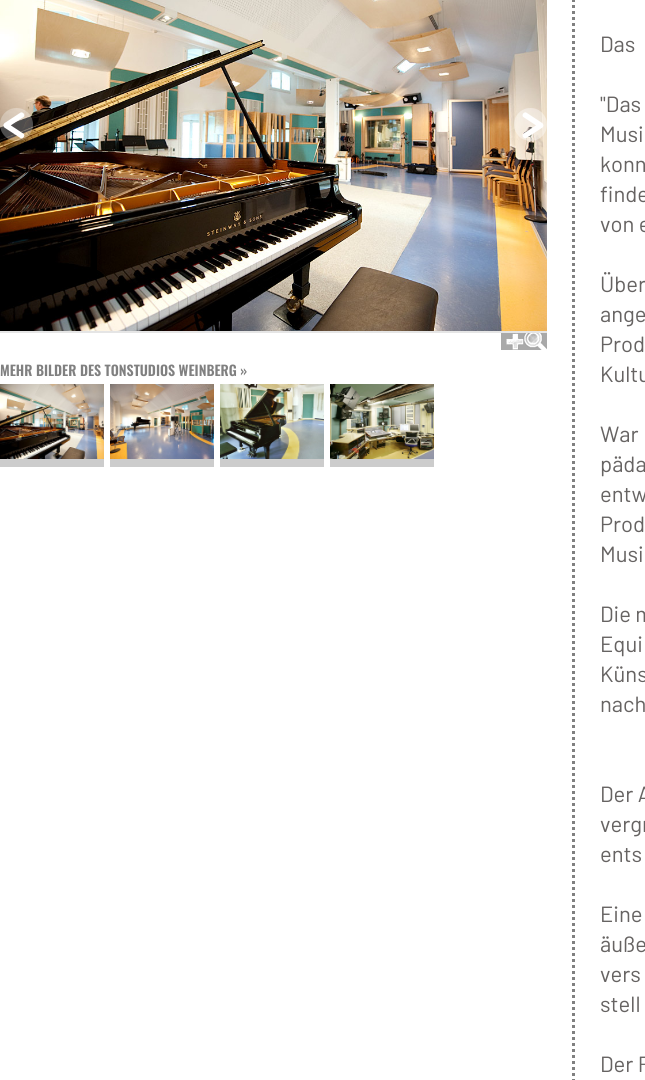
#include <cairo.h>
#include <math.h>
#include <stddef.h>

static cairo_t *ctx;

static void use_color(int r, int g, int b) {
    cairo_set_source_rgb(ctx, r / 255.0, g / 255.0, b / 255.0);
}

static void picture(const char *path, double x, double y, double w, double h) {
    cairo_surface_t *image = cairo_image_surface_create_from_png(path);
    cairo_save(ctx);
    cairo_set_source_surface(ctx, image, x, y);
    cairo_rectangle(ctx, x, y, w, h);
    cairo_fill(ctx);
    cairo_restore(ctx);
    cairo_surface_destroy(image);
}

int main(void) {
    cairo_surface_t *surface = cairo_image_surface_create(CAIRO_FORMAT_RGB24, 645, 1080);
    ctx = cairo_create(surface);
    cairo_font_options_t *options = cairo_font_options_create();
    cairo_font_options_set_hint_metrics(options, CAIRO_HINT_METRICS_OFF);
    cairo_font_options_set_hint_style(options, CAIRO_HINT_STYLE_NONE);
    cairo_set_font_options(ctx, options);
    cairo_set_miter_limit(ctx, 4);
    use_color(255, 255, 255);
    cairo_paint(ctx);
    use_color(229, 229, 229);
    cairo_rectangle(ctx, 0, 331, 547, 2);
    cairo_fill(ctx);
    picture("img1.png", 0, 0, 547, 331);
    cairo_set_source_rgba(ctx, 1, 1, 1, 0.3);
    cairo_arc(ctx, 16.5, 124.5, 16.5, 0, 2 * M_PI);
    cairo_fill(ctx);
    cairo_select_font_face(ctx, "Dosis SemiBold", CAIRO_FONT_SLANT_NORMAL, CAIRO_FONT_WEIGHT_NORMAL);
    cairo_set_font_size(ctx, 60);
    use_color(255, 255, 255);
    cairo_move_to(ctx, 2, 142);
    cairo_show_text(ctx, "<");
    cairo_set_source_rgba(ctx, 1, 1, 1, 0.4);
    cairo_new_path(ctx);
    cairo_arc(ctx, 530.5, 124.5, 16.5, 0, 2 * M_PI);
    cairo_fill(ctx);
    use_color(255, 255, 255);
    cairo_move_to(ctx, 520, 142);
    cairo_show_text(ctx, ">");
    picture("img2.png", 501, 333, 46, 17);
    cairo_select_font_face(ctx, "Oswald SemiBold", CAIRO_FONT_SLANT_NORMAL, CAIRO_FONT_WEIGHT_NORMAL);
    cairo_set_font_size(ctx, 14);
    use_color(128, 128, 128);
    cairo_move_to(ctx, 0, 376);
    cairo_show_text(ctx, "MEHR BILDER DES TONSTUDIOS WEINBERG »");
    use_color(204, 204, 204);
    cairo_rectangle(ctx, 0, 459, 104, 8);
    cairo_fill(ctx);
    picture("img3.png", 0, 384, 104, 75);
    cairo_rectangle(ctx, 110, 459, 104, 8);
    cairo_fill(ctx);
    picture("img4.png", 110, 384, 104, 75);
    cairo_rectangle(ctx, 220, 459, 104, 8);
    cairo_fill(ctx);
    picture("img5.png", 220, 384, 104, 75);
    cairo_rectangle(ctx, 330, 459, 104, 8);
    cairo_fill(ctx);
    picture("img6.png", 330, 384, 104, 75);
    cairo_new_path(ctx);
    cairo_move_to(ctx, 573.5, -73);
    cairo_line_to(ctx, 573.5, 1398);
    use_color(128, 128, 128);
    cairo_set_line_width(ctx, 3);
    cairo_set_dash(ctx, (double[]){3, 3}, 2, 0);
    cairo_stroke(ctx);
    cairo_select_font_face(ctx, "Barlow", CAIRO_FONT_SLANT_NORMAL, CAIRO_FONT_WEIGHT_NORMAL);
    cairo_set_font_size(ctx, 22);
    use_color(102, 99, 98);
    cairo_move_to(ctx, 600, 52);
    cairo_show_text(ctx, "Das");
    cairo_move_to(ctx, 600, 112);
    cairo_show_text(ctx, "\"Das");
    cairo_move_to(ctx, 600, 142);
    cairo_show_text(ctx, "Musi");
    cairo_move_to(ctx, 600, 172);
    cairo_show_text(ctx, "konn");
    cairo_move_to(ctx, 600, 202);
    cairo_show_text(ctx, "finde");
    cairo_move_to(ctx, 600, 232);
    cairo_show_text(ctx, "von e");
    cairo_move_to(ctx, 600, 292);
    cairo_show_text(ctx, "Über");
    cairo_move_to(ctx, 600, 322);
    cairo_show_text(ctx, "ange");
    cairo_move_to(ctx, 600, 352);
    cairo_show_text(ctx, "Prod");
    cairo_move_to(ctx, 600, 382);
    cairo_show_text(ctx, "Kultu");
    cairo_move_to(ctx, 600, 442);
    cairo_show_text(ctx, "War");
    cairo_move_to(ctx, 600, 472);
    cairo_show_text(ctx, "päda");
    cairo_move_to(ctx, 600, 502);
    cairo_show_text(ctx, "entw");
    cairo_move_to(ctx, 600, 532);
    cairo_show_text(ctx, "Prod");
    cairo_move_to(ctx, 600, 562);
    cairo_show_text(ctx, "Musi");
    cairo_move_to(ctx, 600, 622);
    cairo_show_text(ctx, "Die m");
    cairo_move_to(ctx, 600, 652);
    cairo_show_text(ctx, "Equi");
    cairo_move_to(ctx, 600, 682);
    cairo_show_text(ctx, "Küns");
    cairo_move_to(ctx, 600, 712);
    cairo_show_text(ctx, "nach");
    cairo_move_to(ctx, 600, 802);
    cairo_show_text(ctx, "Der A");
    cairo_move_to(ctx, 600, 832);
    cairo_show_text(ctx, "vergr");
    cairo_move_to(ctx, 600, 862);
    cairo_show_text(ctx, "ents");
    cairo_move_to(ctx, 600, 922);
    cairo_show_text(ctx, "Eine");
    cairo_move_to(ctx, 600, 952);
    cairo_show_text(ctx, "äuße");
    cairo_move_to(ctx, 600, 982);
    cairo_show_text(ctx, "vers");
    cairo_move_to(ctx, 600, 1012);
    cairo_show_text(ctx, "stell");
    cairo_move_to(ctx, 600, 1072);
    cairo_show_text(ctx, "Der R");
    cairo_surface_write_to_png(surface, "result.png");
    cairo_font_options_destroy(options);
    cairo_destroy(ctx);
    cairo_surface_destroy(surface);
    return 0;
}
